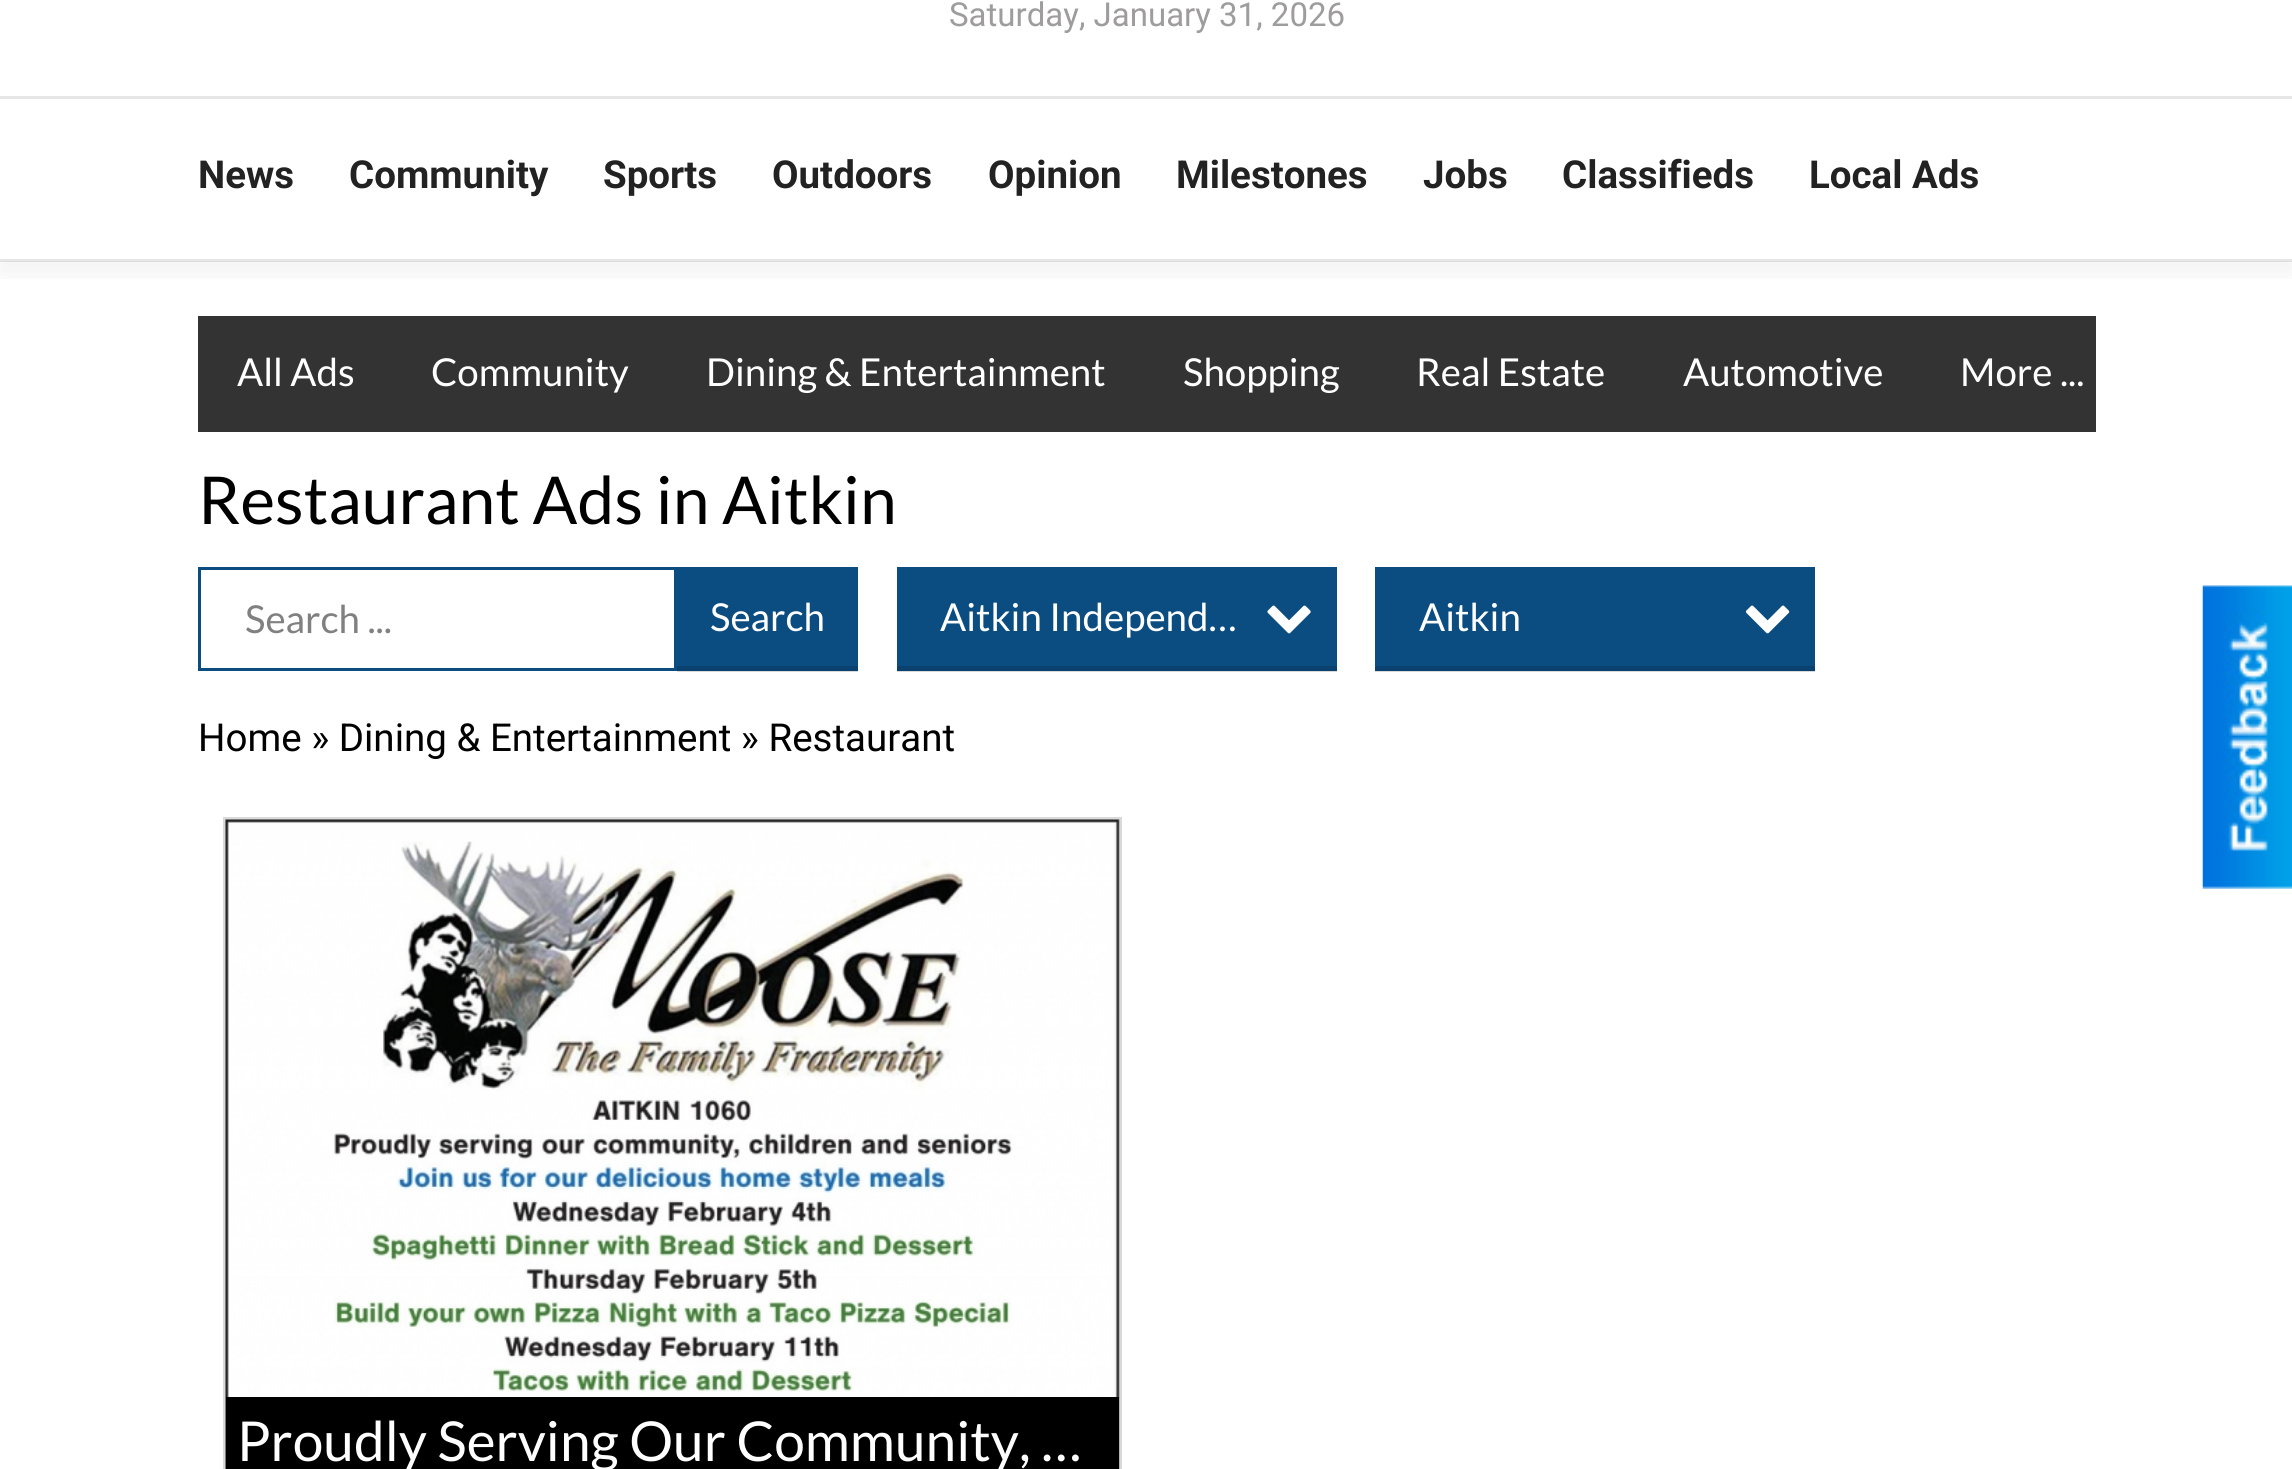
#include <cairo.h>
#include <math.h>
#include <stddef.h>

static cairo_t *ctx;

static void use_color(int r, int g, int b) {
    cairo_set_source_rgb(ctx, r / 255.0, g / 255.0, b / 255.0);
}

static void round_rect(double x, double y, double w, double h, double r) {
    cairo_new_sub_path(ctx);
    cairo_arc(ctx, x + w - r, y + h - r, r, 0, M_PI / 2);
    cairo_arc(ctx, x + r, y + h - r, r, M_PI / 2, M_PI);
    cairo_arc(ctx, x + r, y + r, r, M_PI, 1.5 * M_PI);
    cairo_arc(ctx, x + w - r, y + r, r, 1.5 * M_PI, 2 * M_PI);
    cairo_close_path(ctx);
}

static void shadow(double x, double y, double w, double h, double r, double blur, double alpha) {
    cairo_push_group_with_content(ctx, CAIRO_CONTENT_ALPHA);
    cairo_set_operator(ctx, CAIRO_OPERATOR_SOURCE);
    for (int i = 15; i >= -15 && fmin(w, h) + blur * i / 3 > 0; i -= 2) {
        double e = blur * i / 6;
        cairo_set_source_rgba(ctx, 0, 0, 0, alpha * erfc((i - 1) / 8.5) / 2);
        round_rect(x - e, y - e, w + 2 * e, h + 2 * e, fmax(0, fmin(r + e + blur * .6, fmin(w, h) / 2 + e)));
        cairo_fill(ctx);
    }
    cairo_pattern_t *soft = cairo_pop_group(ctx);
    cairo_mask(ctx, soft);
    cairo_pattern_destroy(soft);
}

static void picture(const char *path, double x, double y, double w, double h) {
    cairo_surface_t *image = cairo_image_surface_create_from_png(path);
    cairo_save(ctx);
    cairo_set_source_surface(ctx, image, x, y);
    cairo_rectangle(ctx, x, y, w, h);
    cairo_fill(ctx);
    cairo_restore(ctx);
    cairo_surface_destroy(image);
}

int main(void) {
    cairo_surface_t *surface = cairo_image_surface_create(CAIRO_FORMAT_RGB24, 2292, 1469);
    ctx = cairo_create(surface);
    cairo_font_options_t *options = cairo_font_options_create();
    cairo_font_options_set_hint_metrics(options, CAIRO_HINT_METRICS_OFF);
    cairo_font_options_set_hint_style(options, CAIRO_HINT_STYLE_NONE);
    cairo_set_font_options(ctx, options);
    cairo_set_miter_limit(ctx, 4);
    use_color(255, 255, 255);
    cairo_paint(ctx);
    use_color(217, 217, 217);
    cairo_rectangle(ctx, 677, 671, 181, 1);
    cairo_fill(ctx);
    cairo_rectangle(ctx, 1375, 671, 440, 1);
    cairo_fill(ctx);
    cairo_rectangle(ctx, 897, 671, 440, 1);
    cairo_fill(ctx);
    use_color(51, 51, 51);
    cairo_rectangle(ctx, 198, 316, 1898, 116);
    cairo_fill(ctx);
    cairo_save(ctx);
    cairo_rectangle(ctx, 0, 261, 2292, 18);
    cairo_clip(ctx);
    use_color(0, 0, 0);
    shadow(0, -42, 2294, 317, 0, 14, 0.05);
    cairo_restore(ctx);
    cairo_set_source_rgba(ctx, 0, 0, 0, 0.1);
    cairo_rectangle(ctx, 0, 259, 2292, 3);
    cairo_fill(ctx);
    cairo_select_font_face(ctx, "Roboto", CAIRO_FONT_SLANT_NORMAL, CAIRO_FONT_WEIGHT_NORMAL);
    cairo_set_font_size(ctx, 33);
    use_color(158, 156, 156);
    cairo_move_to(ctx, 949, 26);
    cairo_show_text(ctx, "Saturday, January 31, 2026");
    use_color(230, 230, 230);
    cairo_rectangle(ctx, 0, 96, 2292, 3);
    cairo_fill(ctx);
    cairo_select_font_face(ctx, "Roboto", CAIRO_FONT_SLANT_NORMAL, CAIRO_FONT_WEIGHT_BOLD);
    cairo_set_font_size(ctx, 38.5);
    use_color(34, 34, 34);
    cairo_move_to(ctx, 198, 188);
    cairo_show_text(ctx, "News");
    cairo_move_to(ctx, 349, 188);
    cairo_show_text(ctx, "Community");
    cairo_move_to(ctx, 603, 188);
    cairo_show_text(ctx, "Sports");
    cairo_move_to(ctx, 772, 188);
    cairo_show_text(ctx, "Outdoors");
    cairo_move_to(ctx, 988, 188);
    cairo_show_text(ctx, "Opinion");
    cairo_move_to(ctx, 1176, 188);
    cairo_show_text(ctx, "Milestones");
    cairo_move_to(ctx, 1423, 188);
    cairo_show_text(ctx, "Jobs");
    cairo_move_to(ctx, 1562, 188);
    cairo_show_text(ctx, "Classifieds");
    cairo_move_to(ctx, 1809, 188);
    cairo_show_text(ctx, "Local Ads");
    cairo_select_font_face(ctx, "Lato", CAIRO_FONT_SLANT_NORMAL, CAIRO_FONT_WEIGHT_NORMAL);
    use_color(255, 255, 255);
    cairo_move_to(ctx, 237, 386);
    cairo_show_text(ctx, "All Ads");
    cairo_move_to(ctx, 431, 386);
    cairo_show_text(ctx, "Community");
    cairo_move_to(ctx, 706, 386);
    cairo_show_text(ctx, "Dining & Entertainment");
    cairo_move_to(ctx, 1183, 386);
    cairo_show_text(ctx, "Shopping");
    cairo_move_to(ctx, 1416, 386);
    cairo_show_text(ctx, "Real Estate");
    cairo_move_to(ctx, 1683, 386);
    cairo_show_text(ctx, "Automotive");
    cairo_move_to(ctx, 1960, 386);
    cairo_show_text(ctx, "More ...");
    cairo_set_font_size(ctx, 66);
    use_color(0, 0, 0);
    cairo_move_to(ctx, 198, 524);
    cairo_show_text(ctx, "Restaurant Ads in Aitkin");
    cairo_rectangle(ctx, 199.5, 568.5, 476, 101);
    use_color(12, 77, 129);
    cairo_set_line_width(ctx, 3);
    cairo_stroke(ctx);
    cairo_set_font_size(ctx, 38.5);
    use_color(128, 128, 128);
    cairo_move_to(ctx, 245, 633);
    cairo_show_text(ctx, "Search ...");
    use_color(12, 77, 129);
    cairo_rectangle(ctx, 677, 567, 181, 99);
    cairo_fill(ctx);
    use_color(10, 65, 110);
    cairo_rectangle(ctx, 677, 666, 181, 5);
    cairo_fill(ctx);
    use_color(255, 255, 255);
    cairo_move_to(ctx, 710, 631);
    cairo_show_text(ctx, "Search");
    use_color(12, 77, 129);
    cairo_rectangle(ctx, 897, 567, 440, 99);
    cairo_fill(ctx);
    use_color(10, 65, 110);
    cairo_rectangle(ctx, 897, 666, 440, 5);
    cairo_fill(ctx);
    use_color(255, 255, 255);
    cairo_move_to(ctx, 940, 631);
    cairo_show_text(ctx, "Aitkin Independ…");
    picture("img1.png", 1267, 605, 44, 29);
    use_color(12, 77, 129);
    cairo_rectangle(ctx, 1375, 567, 440, 99);
    cairo_fill(ctx);
    use_color(10, 65, 110);
    cairo_rectangle(ctx, 1375, 666, 440, 5);
    cairo_fill(ctx);
    use_color(255, 255, 255);
    cairo_move_to(ctx, 1419, 631);
    cairo_show_text(ctx, "Aitkin");
    picture("img2.png", 1745, 605, 45, 29);
    cairo_select_font_face(ctx, "Roboto", CAIRO_FONT_SLANT_NORMAL, CAIRO_FONT_WEIGHT_NORMAL);
    use_color(0, 0, 0);
    cairo_move_to(ctx, 198, 751);
    cairo_show_text(ctx, "Home » Dining & Entertainment » Restaurant");
    cairo_rectangle(ctx, 224.5, 818.5, 896, 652);
    use_color(217, 217, 217);
    cairo_stroke(ctx);
    picture("img3.png", 225, 819, 895, 650);
    use_color(0, 0, 0);
    cairo_rectangle(ctx, 226, 1397, 893, 72);
    cairo_fill(ctx);
    cairo_select_font_face(ctx, "Lato", CAIRO_FONT_SLANT_NORMAL, CAIRO_FONT_WEIGHT_NORMAL);
    cairo_set_font_size(ctx, 55);
    use_color(255, 255, 255);
    cairo_move_to(ctx, 237, 1461);
    cairo_show_text(ctx, "Proudly Serving Our Community, …");
    picture("img4.png", 2202, 585, 90, 304);
    cairo_surface_write_to_png(surface, "result.png");
    cairo_font_options_destroy(options);
    cairo_destroy(ctx);
    cairo_surface_destroy(surface);
    return 0;
}
